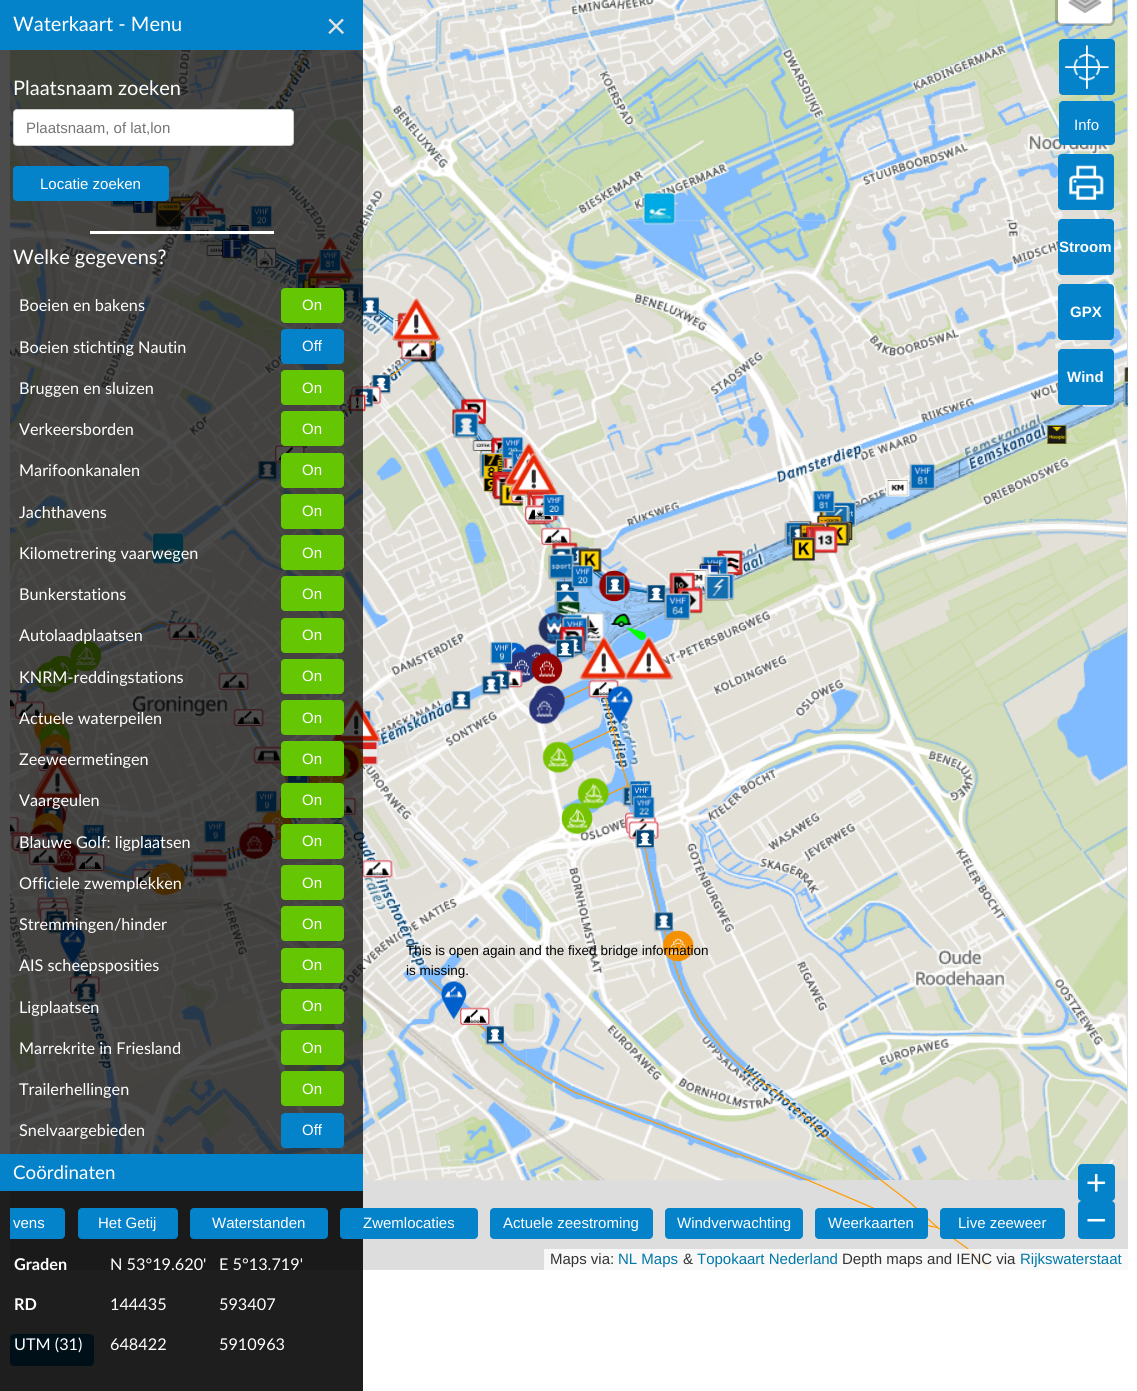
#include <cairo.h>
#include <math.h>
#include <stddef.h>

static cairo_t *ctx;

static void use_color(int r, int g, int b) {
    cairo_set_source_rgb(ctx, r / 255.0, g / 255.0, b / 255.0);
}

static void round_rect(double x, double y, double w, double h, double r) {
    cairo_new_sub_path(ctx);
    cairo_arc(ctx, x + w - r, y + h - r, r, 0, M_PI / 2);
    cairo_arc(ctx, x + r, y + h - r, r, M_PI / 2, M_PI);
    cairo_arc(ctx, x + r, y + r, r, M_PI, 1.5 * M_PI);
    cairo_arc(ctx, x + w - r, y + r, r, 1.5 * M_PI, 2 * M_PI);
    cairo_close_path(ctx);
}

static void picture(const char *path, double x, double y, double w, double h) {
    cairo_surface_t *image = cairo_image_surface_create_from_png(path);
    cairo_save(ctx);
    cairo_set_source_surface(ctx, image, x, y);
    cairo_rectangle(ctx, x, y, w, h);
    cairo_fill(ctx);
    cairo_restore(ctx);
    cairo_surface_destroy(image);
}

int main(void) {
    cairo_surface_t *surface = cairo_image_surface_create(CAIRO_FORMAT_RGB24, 1137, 1391);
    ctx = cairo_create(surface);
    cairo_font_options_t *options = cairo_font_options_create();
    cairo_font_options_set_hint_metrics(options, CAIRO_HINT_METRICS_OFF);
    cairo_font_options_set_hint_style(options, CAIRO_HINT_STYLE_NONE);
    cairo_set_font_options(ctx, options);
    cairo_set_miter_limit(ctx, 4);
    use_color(255, 255, 255);
    cairo_paint(ctx);
    use_color(221, 221, 221);
    cairo_rectangle(ctx, 10, 0, 1118, 1270);
    cairo_fill(ctx);
    picture("img6.png", 10, 50, 196, 170);
    picture("img7.png", 206, 0, 320, 220);
    picture("img10.png", 10, 220, 196, 320);
    picture("img15.png", 206, 540, 321, 321);
    picture("img16.png", 526, 540, 320, 321);
    picture("img11.png", 206, 220, 321, 321);
    picture("img14.png", 10, 540, 196, 320);
    picture("img18.png", 10, 860, 196, 294);
    picture("img19.png", 206, 860, 321, 321);
    picture("img8.png", 526, 0, 320, 220);
    picture("img9.png", 846, 0, 281, 220);
    picture("img12.png", 526, 220, 320, 321);
    picture("img13.png", 846, 220, 281, 320);
    picture("img17.png", 846, 540, 281, 320);
    picture("img20.png", 526, 860, 321, 321);
    picture("img21.png", 846, 860, 281, 320);
    picture("img22.png", 11, 50, 980, 1220);
    picture("img23.png", 188, 190, 27, 19);
    picture("img24.png", 188, 190, 27, 19);
    picture("img32.png", 170, 196, 26, 27);
    picture("img34.png", 170, 196, 26, 27);
    picture("img25.png", 188, 192, 29, 18);
    picture("img26.png", 188, 192, 29, 18);
    picture("img40.png", 161, 201, 30, 19);
    picture("img28.png", 180, 194, 29, 26);
    picture("img29.png", 180, 194, 29, 26);
    picture("img30.png", 181, 195, 28, 23);
    picture("img31.png", 181, 195, 28, 23);
    picture("img33.png", 111, 201, 24, 6);
    picture("img35.png", 111, 201, 24, 6);
    picture("img36.png", 133, 201, 20, 12);
    picture("img37.png", 133, 201, 20, 12);
    picture("img38.png", 155, 201, 27, 27);
    picture("img39.png", 155, 201, 27, 27);
    picture("img41.png", 189, 203, 26, 15);
    picture("img42.png", 189, 203, 26, 15);
    picture("img43.png", 250, 205, 23, 24);
    picture("img44.png", 198, 207, 26, 11);
    picture("img45.png", 198, 207, 26, 18);
    picture("img46.png", 207, 213, 20, 18);
    picture("img48.png", 207, 213, 20, 18);
    picture("img47.png", 182, 215, 28, 28);
    picture("img49.png", 182, 215, 28, 28);
    picture("img50.png", 190, 223, 25, 19);
    picture("img51.png", 190, 223, 25, 19);
    picture("img52.png", 229, 225, 20, 19);
    picture("img53.png", 200, 238, 19, 7);
    picture("img54.png", 229, 225, 20, 19);
    picture("img62.png", 296, 258, 19, 20);
    picture("img64.png", 296, 258, 19, 20);
    picture("img65.png", 299, 258, 18, 17);
    picture("img66.png", 299, 258, 18, 17);
    picture("img67.png", 302, 262, 13, 13);
    picture("img68.png", 307, 266, 6, 9);
    picture("img69.png", 296, 272, 13, 16);
    picture("img70.png", 296, 272, 13, 16);
    picture("img71.png", 296, 272, 15, 16);
    picture("img79.png", 302, 278, 9, 10);
    picture("img55.png", 305, 236, 50, 45);
    picture("img56.png", 200, 238, 19, 7);
    picture("img58.png", 206, 244, 18, 12);
    picture("img60.png", 206, 244, 18, 12);
    picture("img57.png", 222, 238, 20, 20);
    picture("img59.png", 222, 238, 20, 20);
    picture("img61.png", 256, 247, 21, 21);
    picture("img63.png", 318, 249, 24, 23);
    picture("img72.png", 308, 276, 26, 12);
    picture("img73.png", 308, 276, 26, 12);
    picture("img74.png", 324, 276, 26, 9);
    picture("img75.png", 324, 276, 26, 9);
    picture("img81.png", 315, 280, 30, 8);
    picture("img76.png", 316, 277, 26, 11);
    picture("img77.png", 316, 277, 26, 11);
    picture("img78.png", 317, 277, 26, 11);
    picture("img80.png", 317, 277, 26, 11);
    picture("img82.png", 317, 282, 31, 7);
    picture("img83.png", 338, 282, 26, 27);
    picture("img84.png", 338, 282, 26, 27);
    picture("img85.png", 340, 286, 20, 21);
    picture("img86.png", 360, 296, 20, 21);
    picture("img104.png", 371, 374, 21, 20);
    picture("img108.png", 351, 386, 31, 19);
    picture("img110.png", 353, 387, 21, 21);
    picture("img111.png", 349, 394, 17, 18);
    picture("img126.png", 275, 445, 30, 19);
    picture("img144.png", 257, 460, 21, 21);
    picture("img200.png", 152, 532, 33, 33);
    picture("img246.png", 168, 622, 31, 19);
    picture("img255.png", 69, 640, 33, 32);
    picture("img260.png", 49, 655, 29, 32);
    picture("img263.png", 34, 661, 33, 33);
    picture("img266.png", 218, 672, 31, 19);
    picture("img268.png", 10, 689, 18, 20);
    picture("img274.png", 10, 692, 9, 18);
    picture("img275.png", 15, 701, 30, 19);
    picture("img276.png", 233, 709, 31, 18);
    picture("img280.png", 348, 710, 24, 15);
    picture("img277.png", 332, 699, 50, 44);
    picture("img279.png", 33, 712, 33, 30);
    picture("img282.png", 41, 726, 6, 6);
    picture("img281.png", 38, 722, 33, 25);
    picture("img283.png", 39, 733, 33, 28);
    picture("img287.png", 342, 742, 2, 3);
    picture("img284.png", 341, 740, 38, 26);
    picture("img285.png", 341, 740, 38, 26);
    picture("img288.png", 43, 746, 21, 8);
    picture("img289.png", 253, 746, 28, 19);
    picture("img290.png", 343, 743, 21, 32);
    picture("img292.png", 346, 749, 7, 4);
    picture("img291.png", 343, 747, 16, 33);
    picture("img294.png", 38, 754, 31, 18);
    picture("img293.png", 33, 752, 49, 45);
    picture("img295.png", 342, 754, 9, 28);
    picture("img311.png", 37, 799, 31, 16);
    picture("img296.png", 33, 756, 49, 45);
    picture("img306.png", 310, 782, 1, 1);
    picture("img305.png", 310, 781, 3, 2);
    picture("img297.png", 283, 775, 30, 8);
    picture("img298.png", 338, 765, 9, 20);
    picture("img300.png", 307, 776, 5, 6);
    picture("img301.png", 310, 776, 29, 7);
    picture("img304.png", 292, 781, 21, 2);
    picture("img299.png", 286, 776, 24, 7);
    picture("img308.png", 280, 795, 1, 16);
    picture("img317.png", 261, 808, 32, 33);
    picture("img307.png", 255, 790, 23, 24);
    picture("img312.png", 343, 797, 14, 19);
    picture("img314.png", 34, 800, 33, 26);
    picture("img316.png", 42, 806, 21, 20);
    picture("img318.png", 32, 812, 33, 24);
    picture("img320.png", 10, 817, 9, 18);
    picture("img321.png", 203, 820, 24, 24);
    picture("img323.png", 29, 823, 30, 15);
    picture("img324.png", 82, 824, 23, 23);
    picture("img325.png", 247, 822, 31, 19);
    picture("img331.png", 247, 827, 21, 6);
    picture("img327.png", 242, 826, 31, 33);
    picture("img328.png", 238, 827, 30, 33);
    picture("img329.png", 11, 831, 18, 18);
    picture("img330.png", 43, 831, 21, 17);
    picture("img333.png", 12, 834, 31, 18);
    picture("img334.png", 140, 834, 23, 23);
    picture("img335.png", 18, 836, 31, 19);
    picture("img336.png", 51, 841, 30, 33);
    picture("img337.png", 28, 847, 31, 19);
    picture("img338.png", 78, 851, 21, 21);
    picture("img339.png", 205, 849, 18, 4);
    picture("img343.png", 197, 852, 31, 18);
    picture("img344.png", 196, 854, 20, 1);
    picture("img340.png", 191, 852, 39, 27);
    picture("img341.png", 191, 852, 39, 27);
    picture("img342.png", 75, 854, 30, 18);
    picture("img348.png", 155, 864, 20, 5);
    picture("img345.png", 159, 862, 27, 33);
    picture("img346.png", 362, 860, 31, 19);
    picture("img349.png", 132, 869, 23, 18);
    picture("img347.png", 148, 863, 30, 33);
    picture("img350.png", 37, 897, 31, 18);
    picture("img351.png", 38, 901, 31, 18);
    picture("img352.png", 40, 907, 30, 19);
    picture("img353.png", 45, 910, 20, 21);
    picture("img355.png", 47, 914, 21, 20);
    picture("img356.png", 59, 926, 27, 39);
    picture("img358.png", 72, 970, 21, 8);
    picture("img359.png", 70, 976, 30, 19);
    picture("img361.png", 76, 982, 21, 21);
    use_color(5, 131, 202);
    round_rect(10, 1334, 84, 32, 4);
    cairo_fill(ctx);
    cairo_set_source_rgba(ctx, 0.004, 0.004, 0.004, 0.7);
    cairo_rectangle(ctx, 0, 50, 363, 1341);
    cairo_fill(ctx);
    use_color(5, 131, 202);
    cairo_rectangle(ctx, 0, 0, 363, 50);
    cairo_fill(ctx);
    cairo_select_font_face(ctx, "Lato", CAIRO_FONT_SLANT_NORMAL, CAIRO_FONT_WEIGHT_NORMAL);
    cairo_set_font_size(ctx, 20);
    use_color(255, 255, 255);
    cairo_move_to(ctx, 13, 31);
    cairo_show_text(ctx, "Waterkaart - Menu");
    cairo_set_font_size(ctx, 35);
    use_color(226, 226, 226);
    cairo_move_to(ctx, 326, 38);
    cairo_show_text(ctx, "×");
    cairo_set_font_size(ctx, 20);
    use_color(255, 255, 255);
    cairo_move_to(ctx, 13, 95);
    cairo_show_text(ctx, "Plaatsnaam zoeken");
    round_rect(13.5, 109.5, 280, 36, 3.5);
    cairo_fill_preserve(ctx);
    use_color(204, 204, 204);
    cairo_set_line_width(ctx, 1);
    cairo_stroke(ctx);
    cairo_select_font_face(ctx, "Liberation Sans", CAIRO_FONT_SLANT_NORMAL, CAIRO_FONT_WEIGHT_NORMAL);
    cairo_set_font_size(ctx, 15);
    use_color(117, 117, 117);
    cairo_move_to(ctx, 26, 133);
    cairo_show_text(ctx, "Plaatsnaam, of lat,lon");
    use_color(5, 131, 202);
    round_rect(13, 166, 156, 35, 4);
    cairo_fill(ctx);
    use_color(255, 255, 255);
    cairo_move_to(ctx, 40, 189);
    cairo_show_text(ctx, "Locatie zoeken");
    cairo_rectangle(ctx, 90, 231, 184, 3);
    cairo_fill(ctx);
    cairo_select_font_face(ctx, "Lato", CAIRO_FONT_SLANT_NORMAL, CAIRO_FONT_WEIGHT_NORMAL);
    cairo_set_font_size(ctx, 20);
    cairo_move_to(ctx, 13, 264);
    cairo_show_text(ctx, "Welke gegevens?");
    cairo_set_font_size(ctx, 16.25);
    cairo_move_to(ctx, 19, 311);
    cairo_show_text(ctx, "Boeien en bakens");
    use_color(101, 198, 3);
    round_rect(281, 288, 63, 35, 4);
    cairo_fill(ctx);
    cairo_select_font_face(ctx, "Liberation Sans", CAIRO_FONT_SLANT_NORMAL, CAIRO_FONT_WEIGHT_NORMAL);
    cairo_set_font_size(ctx, 15);
    use_color(255, 255, 255);
    cairo_move_to(ctx, 302, 310);
    cairo_show_text(ctx, "On");
    cairo_select_font_face(ctx, "Lato", CAIRO_FONT_SLANT_NORMAL, CAIRO_FONT_WEIGHT_NORMAL);
    cairo_set_font_size(ctx, 16.25);
    cairo_move_to(ctx, 19, 353);
    cairo_show_text(ctx, "Boeien stichting Nautin");
    use_color(5, 131, 202);
    round_rect(281, 329, 63, 35, 4);
    cairo_fill(ctx);
    cairo_select_font_face(ctx, "Liberation Sans", CAIRO_FONT_SLANT_NORMAL, CAIRO_FONT_WEIGHT_NORMAL);
    cairo_set_font_size(ctx, 15);
    use_color(255, 255, 255);
    cairo_move_to(ctx, 302, 351);
    cairo_show_text(ctx, "Off");
    cairo_select_font_face(ctx, "Lato", CAIRO_FONT_SLANT_NORMAL, CAIRO_FONT_WEIGHT_NORMAL);
    cairo_set_font_size(ctx, 16.25);
    cairo_move_to(ctx, 19, 394);
    cairo_show_text(ctx, "Bruggen en sluizen");
    use_color(101, 198, 3);
    round_rect(281, 370, 63, 35, 4);
    cairo_fill(ctx);
    cairo_select_font_face(ctx, "Liberation Sans", CAIRO_FONT_SLANT_NORMAL, CAIRO_FONT_WEIGHT_NORMAL);
    cairo_set_font_size(ctx, 15);
    use_color(255, 255, 255);
    cairo_move_to(ctx, 302, 393);
    cairo_show_text(ctx, "On");
    cairo_select_font_face(ctx, "Lato", CAIRO_FONT_SLANT_NORMAL, CAIRO_FONT_WEIGHT_NORMAL);
    cairo_set_font_size(ctx, 16.25);
    cairo_move_to(ctx, 19, 435);
    cairo_show_text(ctx, "Verkeersborden");
    use_color(101, 198, 3);
    round_rect(281, 411, 63, 35, 4);
    cairo_fill(ctx);
    cairo_select_font_face(ctx, "Liberation Sans", CAIRO_FONT_SLANT_NORMAL, CAIRO_FONT_WEIGHT_NORMAL);
    cairo_set_font_size(ctx, 15);
    use_color(255, 255, 255);
    cairo_move_to(ctx, 302, 434);
    cairo_show_text(ctx, "On");
    cairo_select_font_face(ctx, "Lato", CAIRO_FONT_SLANT_NORMAL, CAIRO_FONT_WEIGHT_NORMAL);
    cairo_set_font_size(ctx, 16.25);
    cairo_move_to(ctx, 19, 476);
    cairo_show_text(ctx, "Marifoonkanalen");
    use_color(101, 198, 3);
    round_rect(281, 453, 63, 35, 4);
    cairo_fill(ctx);
    cairo_select_font_face(ctx, "Liberation Sans", CAIRO_FONT_SLANT_NORMAL, CAIRO_FONT_WEIGHT_NORMAL);
    cairo_set_font_size(ctx, 15);
    use_color(255, 255, 255);
    cairo_move_to(ctx, 302, 475);
    cairo_show_text(ctx, "On");
    cairo_select_font_face(ctx, "Lato", CAIRO_FONT_SLANT_NORMAL, CAIRO_FONT_WEIGHT_NORMAL);
    cairo_set_font_size(ctx, 16.25);
    cairo_move_to(ctx, 19, 518);
    cairo_show_text(ctx, "Jachthavens");
    use_color(101, 198, 3);
    round_rect(281, 494, 63, 35, 4);
    cairo_fill(ctx);
    cairo_select_font_face(ctx, "Liberation Sans", CAIRO_FONT_SLANT_NORMAL, CAIRO_FONT_WEIGHT_NORMAL);
    cairo_set_font_size(ctx, 15);
    use_color(255, 255, 255);
    cairo_move_to(ctx, 302, 516);
    cairo_show_text(ctx, "On");
    cairo_select_font_face(ctx, "Lato", CAIRO_FONT_SLANT_NORMAL, CAIRO_FONT_WEIGHT_NORMAL);
    cairo_set_font_size(ctx, 16.25);
    cairo_move_to(ctx, 19, 559);
    cairo_show_text(ctx, "Kilometrering vaarwegen");
    use_color(101, 198, 3);
    round_rect(281, 535, 63, 35, 4);
    cairo_fill(ctx);
    cairo_select_font_face(ctx, "Liberation Sans", CAIRO_FONT_SLANT_NORMAL, CAIRO_FONT_WEIGHT_NORMAL);
    cairo_set_font_size(ctx, 15);
    use_color(255, 255, 255);
    cairo_move_to(ctx, 302, 558);
    cairo_show_text(ctx, "On");
    cairo_select_font_face(ctx, "Lato", CAIRO_FONT_SLANT_NORMAL, CAIRO_FONT_WEIGHT_NORMAL);
    cairo_set_font_size(ctx, 16.25);
    cairo_move_to(ctx, 19, 600);
    cairo_show_text(ctx, "Bunkerstations");
    use_color(101, 198, 3);
    round_rect(281, 576, 63, 35, 4);
    cairo_fill(ctx);
    cairo_select_font_face(ctx, "Liberation Sans", CAIRO_FONT_SLANT_NORMAL, CAIRO_FONT_WEIGHT_NORMAL);
    cairo_set_font_size(ctx, 15);
    use_color(255, 255, 255);
    cairo_move_to(ctx, 302, 599);
    cairo_show_text(ctx, "On");
    cairo_select_font_face(ctx, "Lato", CAIRO_FONT_SLANT_NORMAL, CAIRO_FONT_WEIGHT_NORMAL);
    cairo_set_font_size(ctx, 16.25);
    cairo_move_to(ctx, 19, 641);
    cairo_show_text(ctx, "Autolaadplaatsen");
    use_color(101, 198, 3);
    round_rect(281, 618, 63, 35, 4);
    cairo_fill(ctx);
    cairo_select_font_face(ctx, "Liberation Sans", CAIRO_FONT_SLANT_NORMAL, CAIRO_FONT_WEIGHT_NORMAL);
    cairo_set_font_size(ctx, 15);
    use_color(255, 255, 255);
    cairo_move_to(ctx, 302, 640);
    cairo_show_text(ctx, "On");
    cairo_select_font_face(ctx, "Lato", CAIRO_FONT_SLANT_NORMAL, CAIRO_FONT_WEIGHT_NORMAL);
    cairo_set_font_size(ctx, 16.25);
    cairo_move_to(ctx, 19, 683);
    cairo_show_text(ctx, "KNRM-reddingstations");
    use_color(101, 198, 3);
    round_rect(281, 659, 63, 35, 4);
    cairo_fill(ctx);
    cairo_select_font_face(ctx, "Liberation Sans", CAIRO_FONT_SLANT_NORMAL, CAIRO_FONT_WEIGHT_NORMAL);
    cairo_set_font_size(ctx, 15);
    use_color(255, 255, 255);
    cairo_move_to(ctx, 302, 681);
    cairo_show_text(ctx, "On");
    cairo_select_font_face(ctx, "Lato", CAIRO_FONT_SLANT_NORMAL, CAIRO_FONT_WEIGHT_NORMAL);
    cairo_set_font_size(ctx, 16.25);
    cairo_move_to(ctx, 19, 724);
    cairo_show_text(ctx, "Actuele waterpeilen");
    use_color(101, 198, 3);
    round_rect(281, 700, 63, 35, 4);
    cairo_fill(ctx);
    cairo_select_font_face(ctx, "Liberation Sans", CAIRO_FONT_SLANT_NORMAL, CAIRO_FONT_WEIGHT_NORMAL);
    cairo_set_font_size(ctx, 15);
    use_color(255, 255, 255);
    cairo_move_to(ctx, 302, 723);
    cairo_show_text(ctx, "On");
    cairo_select_font_face(ctx, "Lato", CAIRO_FONT_SLANT_NORMAL, CAIRO_FONT_WEIGHT_NORMAL);
    cairo_set_font_size(ctx, 16.25);
    cairo_move_to(ctx, 19, 765);
    cairo_show_text(ctx, "Zeeweermetingen");
    use_color(101, 198, 3);
    round_rect(281, 741, 63, 35, 4);
    cairo_fill(ctx);
    cairo_select_font_face(ctx, "Liberation Sans", CAIRO_FONT_SLANT_NORMAL, CAIRO_FONT_WEIGHT_NORMAL);
    cairo_set_font_size(ctx, 15);
    use_color(255, 255, 255);
    cairo_move_to(ctx, 302, 764);
    cairo_show_text(ctx, "On");
    cairo_select_font_face(ctx, "Lato", CAIRO_FONT_SLANT_NORMAL, CAIRO_FONT_WEIGHT_NORMAL);
    cairo_set_font_size(ctx, 16.25);
    cairo_move_to(ctx, 19, 806);
    cairo_show_text(ctx, "Vaargeulen");
    use_color(101, 198, 3);
    round_rect(281, 783, 63, 35, 4);
    cairo_fill(ctx);
    cairo_select_font_face(ctx, "Liberation Sans", CAIRO_FONT_SLANT_NORMAL, CAIRO_FONT_WEIGHT_NORMAL);
    cairo_set_font_size(ctx, 15);
    use_color(255, 255, 255);
    cairo_move_to(ctx, 302, 805);
    cairo_show_text(ctx, "On");
    cairo_select_font_face(ctx, "Lato", CAIRO_FONT_SLANT_NORMAL, CAIRO_FONT_WEIGHT_NORMAL);
    cairo_set_font_size(ctx, 16.25);
    cairo_move_to(ctx, 19, 848);
    cairo_show_text(ctx, "Blauwe Golf: ligplaatsen");
    use_color(101, 198, 3);
    round_rect(281, 824, 63, 35, 4);
    cairo_fill(ctx);
    cairo_select_font_face(ctx, "Liberation Sans", CAIRO_FONT_SLANT_NORMAL, CAIRO_FONT_WEIGHT_NORMAL);
    cairo_set_font_size(ctx, 15);
    use_color(255, 255, 255);
    cairo_move_to(ctx, 302, 846);
    cairo_show_text(ctx, "On");
    cairo_select_font_face(ctx, "Lato", CAIRO_FONT_SLANT_NORMAL, CAIRO_FONT_WEIGHT_NORMAL);
    cairo_set_font_size(ctx, 16.25);
    cairo_move_to(ctx, 19, 889);
    cairo_show_text(ctx, "Officiele zwemplekken");
    use_color(101, 198, 3);
    round_rect(281, 865, 63, 35, 4);
    cairo_fill(ctx);
    cairo_select_font_face(ctx, "Liberation Sans", CAIRO_FONT_SLANT_NORMAL, CAIRO_FONT_WEIGHT_NORMAL);
    cairo_set_font_size(ctx, 15);
    use_color(255, 255, 255);
    cairo_move_to(ctx, 302, 888);
    cairo_show_text(ctx, "On");
    cairo_select_font_face(ctx, "Lato", CAIRO_FONT_SLANT_NORMAL, CAIRO_FONT_WEIGHT_NORMAL);
    cairo_set_font_size(ctx, 16.25);
    cairo_move_to(ctx, 19, 930);
    cairo_show_text(ctx, "Stremmingen/hinder");
    use_color(101, 198, 3);
    round_rect(281, 906, 63, 35, 4);
    cairo_fill(ctx);
    cairo_select_font_face(ctx, "Liberation Sans", CAIRO_FONT_SLANT_NORMAL, CAIRO_FONT_WEIGHT_NORMAL);
    cairo_set_font_size(ctx, 15);
    use_color(255, 255, 255);
    cairo_move_to(ctx, 302, 929);
    cairo_show_text(ctx, "On");
    cairo_select_font_face(ctx, "Lato", CAIRO_FONT_SLANT_NORMAL, CAIRO_FONT_WEIGHT_NORMAL);
    cairo_set_font_size(ctx, 16.25);
    cairo_move_to(ctx, 19, 971);
    cairo_show_text(ctx, "AIS scheepsposities");
    use_color(101, 198, 3);
    round_rect(281, 948, 63, 35, 4);
    cairo_fill(ctx);
    cairo_select_font_face(ctx, "Liberation Sans", CAIRO_FONT_SLANT_NORMAL, CAIRO_FONT_WEIGHT_NORMAL);
    cairo_set_font_size(ctx, 15);
    use_color(255, 255, 255);
    cairo_move_to(ctx, 302, 970);
    cairo_show_text(ctx, "On");
    cairo_select_font_face(ctx, "Lato", CAIRO_FONT_SLANT_NORMAL, CAIRO_FONT_WEIGHT_NORMAL);
    cairo_set_font_size(ctx, 16.25);
    cairo_move_to(ctx, 19, 1013);
    cairo_show_text(ctx, "Ligplaatsen");
    use_color(101, 198, 3);
    round_rect(281, 989, 63, 35, 4);
    cairo_fill(ctx);
    cairo_select_font_face(ctx, "Liberation Sans", CAIRO_FONT_SLANT_NORMAL, CAIRO_FONT_WEIGHT_NORMAL);
    cairo_set_font_size(ctx, 15);
    use_color(255, 255, 255);
    cairo_move_to(ctx, 302, 1011);
    cairo_show_text(ctx, "On");
    cairo_select_font_face(ctx, "Lato", CAIRO_FONT_SLANT_NORMAL, CAIRO_FONT_WEIGHT_NORMAL);
    cairo_set_font_size(ctx, 16.25);
    cairo_move_to(ctx, 19, 1054);
    cairo_show_text(ctx, "Marrekrite in Friesland");
    use_color(101, 198, 3);
    round_rect(281, 1030, 63, 35, 4);
    cairo_fill(ctx);
    cairo_select_font_face(ctx, "Liberation Sans", CAIRO_FONT_SLANT_NORMAL, CAIRO_FONT_WEIGHT_NORMAL);
    cairo_set_font_size(ctx, 15);
    use_color(255, 255, 255);
    cairo_move_to(ctx, 302, 1053);
    cairo_show_text(ctx, "On");
    cairo_select_font_face(ctx, "Lato", CAIRO_FONT_SLANT_NORMAL, CAIRO_FONT_WEIGHT_NORMAL);
    cairo_set_font_size(ctx, 16.25);
    cairo_move_to(ctx, 19, 1095);
    cairo_show_text(ctx, "Trailerhellingen");
    use_color(101, 198, 3);
    round_rect(281, 1071, 63, 35, 4);
    cairo_fill(ctx);
    cairo_select_font_face(ctx, "Liberation Sans", CAIRO_FONT_SLANT_NORMAL, CAIRO_FONT_WEIGHT_NORMAL);
    cairo_set_font_size(ctx, 15);
    use_color(255, 255, 255);
    cairo_move_to(ctx, 302, 1094);
    cairo_show_text(ctx, "On");
    cairo_select_font_face(ctx, "Lato", CAIRO_FONT_SLANT_NORMAL, CAIRO_FONT_WEIGHT_NORMAL);
    cairo_set_font_size(ctx, 16.25);
    cairo_move_to(ctx, 19, 1136);
    cairo_show_text(ctx, "Snelvaargebieden");
    use_color(5, 131, 202);
    round_rect(281, 1113, 63, 35, 4);
    cairo_fill(ctx);
    cairo_select_font_face(ctx, "Liberation Sans", CAIRO_FONT_SLANT_NORMAL, CAIRO_FONT_WEIGHT_NORMAL);
    cairo_set_font_size(ctx, 15);
    use_color(255, 255, 255);
    cairo_move_to(ctx, 302, 1135);
    cairo_show_text(ctx, "Off");
    use_color(5, 131, 202);
    cairo_rectangle(ctx, 0, 1154, 363, 37);
    cairo_fill(ctx);
    cairo_select_font_face(ctx, "Lato", CAIRO_FONT_SLANT_NORMAL, CAIRO_FONT_WEIGHT_NORMAL);
    cairo_set_font_size(ctx, 18.75);
    use_color(255, 255, 255);
    cairo_move_to(ctx, 13, 1179);
    cairo_show_text(ctx, "Coördinaten");
    cairo_set_source_rgba(ctx, 0.004, 0.004, 0.004, 0.6);
    cairo_rectangle(ctx, 0, 1191, 363, 200);
    cairo_fill(ctx);
    cairo_select_font_face(ctx, "Lato", CAIRO_FONT_SLANT_NORMAL, CAIRO_FONT_WEIGHT_BOLD);
    cairo_set_font_size(ctx, 16.25);
    use_color(255, 255, 255);
    cairo_move_to(ctx, 14, 1270);
    cairo_show_text(ctx, "Graden");
    cairo_select_font_face(ctx, "Lato", CAIRO_FONT_SLANT_NORMAL, CAIRO_FONT_WEIGHT_NORMAL);
    cairo_move_to(ctx, 110, 1270);
    cairo_show_text(ctx, "N 53°19.620'");
    cairo_move_to(ctx, 219, 1270);
    cairo_show_text(ctx, "E 5°13.719'");
    cairo_select_font_face(ctx, "Lato", CAIRO_FONT_SLANT_NORMAL, CAIRO_FONT_WEIGHT_BOLD);
    cairo_move_to(ctx, 14, 1310);
    cairo_show_text(ctx, "RD");
    cairo_select_font_face(ctx, "Lato", CAIRO_FONT_SLANT_NORMAL, CAIRO_FONT_WEIGHT_NORMAL);
    cairo_move_to(ctx, 110, 1310);
    cairo_show_text(ctx, "144435");
    cairo_move_to(ctx, 219, 1310);
    cairo_show_text(ctx, "593407");
    cairo_move_to(ctx, 14, 1350);
    cairo_show_text(ctx, "UTM (31)");
    cairo_move_to(ctx, 110, 1350);
    cairo_show_text(ctx, "648422");
    cairo_move_to(ctx, 219, 1350);
    cairo_show_text(ctx, "5910963");
    round_rect(1058, -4, 55, 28, 4);
    cairo_fill(ctx);
    round_rect(1056.5, -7.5, 57, 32, 4.5);
    cairo_set_source_rgba(ctx, 0, 0, 0, 0.2);
    cairo_set_line_width(ctx, 3);
    cairo_stroke(ctx);
    picture("img1.png", 1068, 0, 34, 13);
    use_color(5, 131, 202);
    round_rect(1059, 39, 56, 56, 4);
    cairo_fill(ctx);
    picture("img2.png", 1065, 45, 44, 44);
    round_rect(1059, 101, 56, 44, 4);
    cairo_fill(ctx);
    cairo_select_font_face(ctx, "Liberation Sans", CAIRO_FONT_SLANT_NORMAL, CAIRO_FONT_WEIGHT_NORMAL);
    cairo_set_font_size(ctx, 15);
    use_color(255, 255, 255);
    cairo_move_to(ctx, 1074, 130);
    cairo_show_text(ctx, "Info");
    cairo_set_source_rgba(ctx, 1, 1, 1, 0.8);
    cairo_rectangle(ctx, 544, 1249, 584, 21);
    cairo_fill(ctx);
    use_color(51, 51, 51);
    cairo_move_to(ctx, 550, 1264);
    cairo_show_text(ctx, "Maps via:");
    use_color(0, 120, 168);
    cairo_move_to(ctx, 618, 1264);
    cairo_show_text(ctx, "NL Maps");
    use_color(51, 51, 51);
    cairo_move_to(ctx, 683, 1264);
    cairo_show_text(ctx, "&");
    use_color(0, 120, 168);
    cairo_move_to(ctx, 697, 1264);
    cairo_show_text(ctx, "Topokaart Nederland");
    use_color(51, 51, 51);
    cairo_move_to(ctx, 842, 1264);
    cairo_show_text(ctx, "Depth maps and IENC via");
    use_color(0, 120, 168);
    cairo_move_to(ctx, 1020, 1264);
    cairo_show_text(ctx, "Rijkswaterstaat");
    use_color(5, 131, 202);
    round_rect(1058, 154, 56, 56, 4);
    cairo_fill(ctx);
    picture("img3.png", 1069, 165, 35, 35);
    round_rect(1058, 219, 56, 56, 4);
    cairo_fill(ctx);
    cairo_select_font_face(ctx, "Liberation Sans", CAIRO_FONT_SLANT_NORMAL, CAIRO_FONT_WEIGHT_BOLD);
    use_color(255, 255, 255);
    cairo_move_to(ctx, 1059, 252);
    cairo_show_text(ctx, "Stroom");
    use_color(5, 131, 202);
    round_rect(1058, 284, 56, 56, 4);
    cairo_fill(ctx);
    use_color(255, 255, 255);
    cairo_move_to(ctx, 1070, 317);
    cairo_show_text(ctx, "GPX");
    use_color(5, 131, 202);
    round_rect(1058, 349, 56, 56, 4);
    cairo_fill(ctx);
    use_color(255, 255, 255);
    cairo_move_to(ctx, 1067, 382);
    cairo_show_text(ctx, "Wind");
    use_color(5, 131, 202);
    round_rect(1078, 1164, 37, 37, 4);
    cairo_fill(ctx);
    picture("img4.png", 1087, 1173, 19, 19);
    round_rect(1078, 1201, 37, 38, 4);
    cairo_fill(ctx);
    picture("img5.png", 1087, 1218, 19, 4);
    picture("img27.png", 643, 192, 33, 33);
    picture("img89.png", 393, 318, 7, 19);
    picture("img91.png", 393, 318, 7, 19);
    picture("img88.png", 397, 312, 11, 36);
    picture("img90.png", 397, 312, 11, 36);
    picture("img92.png", 398, 321, 5, 26);
    picture("img93.png", 398, 321, 5, 26);
    picture("img94.png", 399, 322, 4, 27);
    picture("img95.png", 399, 322, 6, 27);
    picture("img98.png", 402, 340, 3, 4);
    picture("img99.png", 402, 340, 3, 4);
    picture("img96.png", 401, 340, 12, 20);
    picture("img97.png", 401, 340, 12, 20);
    picture("img100.png", 410, 340, 27, 23);
    picture("img101.png", 410, 340, 27, 23);
    picture("img87.png", 392, 298, 49, 44);
    picture("img102.png", 401, 341, 31, 19);
    picture("img103.png", 1124, 367, 4, 24);
    picture("img105.png", 1124, 367, 4, 24);
    picture("img106.png", 1123, 381, 5, 26);
    picture("img107.png", 1123, 381, 5, 26);
    picture("img109.png", 1126, 384, 2, 20);
    picture("img112.png", 461, 398, 26, 27);
    picture("img113.png", 461, 398, 26, 27);
    picture("img114.png", 1083, 405, 25, 2);
    picture("img115.png", 1083, 405, 25, 2);
    picture("img116.png", 452, 408, 26, 27);
    picture("img117.png", 452, 408, 26, 27);
    picture("img118.png", 453, 412, 26, 27);
    picture("img119.png", 453, 412, 26, 27);
    picture("img120.png", 1047, 425, 20, 19);
    picture("img125.png", 472, 439, 32, 12);
    picture("img127.png", 472, 439, 32, 12);
    picture("img130.png", 479, 449, 14, 12);
    picture("img132.png", 479, 449, 14, 12);
    picture("img123.png", 491, 437, 25, 17);
    picture("img124.png", 491, 437, 25, 17);
    picture("img133.png", 495, 449, 9, 5);
    picture("img129.png", 498, 447, 26, 7);
    picture("img131.png", 498, 447, 26, 8);
    picture("img134.png", 499, 450, 26, 5);
    picture("img135.png", 499, 450, 26, 20);
    picture("img139.png", 485, 452, 20, 18);
    picture("img136.png", 479, 452, 26, 27);
    picture("img138.png", 479, 452, 26, 27);
    picture("img142.png", 503, 456, 3, 14);
    picture("img143.png", 503, 456, 11, 14);
    picture("img145.png", 501, 459, 4, 11);
    picture("img121.png", 501, 436, 24, 24);
    picture("img122.png", 1047, 425, 20, 19);
    picture("img147.png", 489, 467, 25, 27);
    picture("img149.png", 489, 467, 25, 27);
    picture("img141.png", 483, 454, 20, 38);
    picture("img150.png", 492, 471, 20, 27);
    picture("img151.png", 492, 471, 20, 27);
    picture("img137.png", 511, 450, 23, 23);
    picture("img152.png", 493, 473, 19, 27);
    picture("img153.png", 493, 473, 19, 27);
    picture("img154.png", 504, 476, 6, 8);
    picture("img155.png", 504, 476, 6, 8);
    picture("img156.png", 504, 479, 21, 28);
    picture("img158.png", 499, 482, 24, 24);
    picture("img160.png", 499, 482, 24, 24);
    picture("img161.png", 511, 485, 17, 19);
    picture("img128.png", 503, 443, 50, 44);
    picture("img164.png", 523, 495, 5, 19);
    picture("img167.png", 523, 495, 5, 19);
    picture("img140.png", 508, 452, 50, 45);
    picture("img146.png", 909, 463, 27, 27);
    picture("img148.png", 909, 463, 27, 27);
    picture("img157.png", 885, 479, 25, 18);
    picture("img159.png", 885, 479, 25, 18);
    picture("img162.png", 527, 491, 24, 34);
    picture("img170.png", 834, 501, 22, 26);
    picture("img172.png", 834, 502, 22, 25);
    picture("img177.png", 834, 506, 13, 1);
    picture("img178.png", 834, 506, 16, 16);
    picture("img175.png", 819, 506, 24, 17);
    picture("img176.png", 819, 506, 24, 17);
    picture("img173.png", 823, 505, 26, 17);
    picture("img174.png", 823, 505, 26, 17);
    picture("img163.png", 812, 490, 24, 24);
    picture("img165.png", 527, 491, 24, 34);
    picture("img168.png", 532, 495, 26, 26);
    picture("img169.png", 532, 495, 26, 26);
    picture("img171.png", 525, 505, 30, 19);
    picture("img166.png", 542, 494, 23, 23);
    picture("img179.png", 816, 515, 27, 8);
    picture("img180.png", 816, 515, 27, 9);
    picture("img186.png", 833, 521, 20, 20);
    picture("img185.png", 810, 522, 27, 7);
    picture("img183.png", 788, 521, 24, 5);
    picture("img184.png", 788, 521, 24, 5);
    picture("img190.png", 785, 524, 2, 21);
    picture("img181.png", 784, 521, 26, 26);
    picture("img182.png", 784, 521, 26, 26);
    picture("img193.png", 830, 523, 20, 21);
    picture("img187.png", 825, 522, 24, 24);
    picture("img191.png", 788, 525, 21, 20);
    picture("img188.png", 799, 523, 26, 16);
    picture("img189.png", 825, 522, 24, 24);
    picture("img192.png", 799, 523, 26, 16);
    picture("img194.png", 806, 526, 25, 26);
    picture("img195.png", 806, 526, 25, 26);
    picture("img196.png", 809, 526, 26, 26);
    picture("img197.png", 541, 527, 31, 19);
    picture("img198.png", 809, 526, 26, 26);
    picture("img199.png", 812, 527, 26, 27);
    picture("img202.png", 812, 527, 26, 27);
    picture("img205.png", 792, 539, 2, 21);
    picture("img201.png", 792, 537, 23, 24);
    picture("img203.png", 792, 537, 23, 24);
    picture("img204.png", 552, 542, 26, 27);
    picture("img206.png", 552, 542, 26, 27);
    picture("img207.png", 570, 546, 20, 21);
    picture("img208.png", 551, 547, 21, 9);
    picture("img209.png", 578, 548, 24, 25);
    picture("img210.png", 578, 548, 24, 25);
    picture("img211.png", 717, 550, 26, 26);
    picture("img212.png", 548, 553, 26, 27);
    picture("img213.png", 717, 550, 26, 26);
    picture("img214.png", 548, 553, 26, 27);
    picture("img215.png", 701, 555, 28, 28);
    picture("img216.png", 701, 555, 28, 28);
    picture("img217.png", 699, 563, 20, 20);
    picture("img229.png", 555, 580, 20, 21);
    picture("img218.png", 571, 565, 24, 24);
    picture("img219.png", 699, 563, 20, 20);
    picture("img220.png", 684, 568, 25, 19);
    picture("img221.png", 598, 570, 33, 32);
    picture("img223.png", 684, 568, 25, 19);
    picture("img222.png", 669, 572, 26, 23);
    picture("img224.png", 669, 572, 26, 23);
    picture("img225.png", 707, 573, 28, 27);
    picture("img226.png", 605, 575, 20, 21);
    picture("img227.png", 707, 573, 28, 27);
    picture("img228.png", 704, 575, 26, 26);
    picture("img230.png", 646, 584, 21, 20);
    picture("img231.png", 677, 587, 26, 27);
    picture("img232.png", 704, 575, 26, 26);
    picture("img233.png", 554, 590, 26, 25);
    picture("img234.png", 677, 587, 26, 27);
    picture("img235.png", 554, 590, 26, 25);
    picture("img236.png", 664, 593, 27, 27);
    picture("img238.png", 556, 600, 25, 15);
    picture("img239.png", 577, 611, 21, 3);
    picture("img242.png", 574, 612, 31, 31);
    picture("img241.png", 553, 613, 31, 31);
    picture("img237.png", 538, 612, 30, 33);
    picture("img240.png", 664, 593, 27, 27);
    picture("img243.png", 611, 613, 21, 14);
    picture("img244.png", 561, 616, 28, 28);
    picture("img248.png", 620, 623, 27, 17);
    picture("img245.png", 611, 613, 21, 14);
    picture("img247.png", 561, 616, 28, 28);
    picture("img249.png", 559, 626, 26, 27);
    picture("img250.png", 620, 623, 27, 17);
    picture("img251.png", 559, 626, 26, 27);
    picture("img252.png", 563, 635, 21, 21);
    picture("img253.png", 579, 636, 50, 45);
    picture("img254.png", 624, 636, 49, 45);
    picture("img258.png", 524, 643, 28, 17);
    picture("img257.png", 503, 642, 24, 29);
    picture("img261.png", 506, 651, 30, 33);
    picture("img256.png", 490, 641, 23, 24);
    picture("img259.png", 555, 639, 20, 20);
    picture("img262.png", 531, 652, 32, 33);
    picture("img265.png", 492, 670, 31, 19);
    picture("img267.png", 493, 671, 17, 18);
    picture("img264.png", 490, 670, 20, 21);
    picture("img269.png", 451, 690, 21, 21);
    picture("img270.png", 481, 675, 21, 21);
    picture("img271.png", 533, 685, 33, 30);
    picture("img272.png", 588, 680, 31, 19);
    picture("img273.png", 607, 686, 27, 39);
    picture("img278.png", 528, 693, 32, 32);
    picture("img286.png", 542, 741, 33, 33);
    picture("img302.png", 577, 777, 33, 33);
    picture("img309.png", 622, 786, 13, 21);
    picture("img303.png", 628, 780, 23, 24);
    picture("img310.png", 630, 784, 23, 23);
    picture("img319.png", 625, 812, 30, 18);
    picture("img322.png", 626, 816, 31, 19);
    picture("img313.png", 632, 796, 23, 24);
    picture("img315.png", 561, 802, 32, 33);
    picture("img326.png", 628, 821, 31, 19);
    picture("img332.png", 635, 829, 20, 20);
    picture("img354.png", 653, 911, 21, 21);
    picture("img357.png", 662, 930, 33, 32);
    cairo_select_font_face(ctx, "Liberation Sans", CAIRO_FONT_SLANT_NORMAL, CAIRO_FONT_WEIGHT_NORMAL);
    cairo_set_font_size(ctx, 13.5);
    use_color(0, 0, 0);
    cairo_move_to(ctx, 406, 955);
    cairo_show_text(ctx, "This is open again and the fixed bridge information");
    cairo_move_to(ctx, 406, 975);
    cairo_show_text(ctx, "is missing.");
    picture("img360.png", 441, 981, 26, 39);
    picture("img362.png", 460, 1007, 30, 19);
    picture("img363.png", 485, 1025, 20, 21);
    use_color(5, 131, 202);
    cairo_new_path(ctx);
    cairo_move_to(ctx, 10, 1208);
    cairo_line_to(ctx, 61, 1208);
    cairo_curve_to(ctx, 63, 1208, 65, 1210, 65, 1212);
    cairo_line_to(ctx, 65, 1235);
    cairo_curve_to(ctx, 65, 1237, 63, 1239, 61, 1239);
    cairo_line_to(ctx, 10, 1239);
    cairo_close_path(ctx);
    cairo_fill(ctx);
    cairo_set_font_size(ctx, 15);
    use_color(255, 255, 255);
    cairo_move_to(ctx, 13, 1228);
    cairo_show_text(ctx, "vens");
    use_color(5, 131, 202);
    round_rect(78, 1208, 100, 31, 4);
    cairo_fill(ctx);
    use_color(255, 255, 255);
    cairo_move_to(ctx, 98, 1228);
    cairo_show_text(ctx, "Het Getij");
    use_color(5, 131, 202);
    round_rect(190, 1208, 138, 31, 4);
    cairo_fill(ctx);
    use_color(255, 255, 255);
    cairo_move_to(ctx, 212, 1228);
    cairo_show_text(ctx, "Waterstanden");
    use_color(5, 131, 202);
    round_rect(340, 1208, 138, 31, 4);
    cairo_fill(ctx);
    use_color(255, 255, 255);
    cairo_move_to(ctx, 363, 1228);
    cairo_show_text(ctx, "Zwemlocaties");
    use_color(5, 131, 202);
    round_rect(490, 1208, 163, 31, 4);
    cairo_fill(ctx);
    use_color(255, 255, 255);
    cairo_move_to(ctx, 503, 1228);
    cairo_show_text(ctx, "Actuele zeestroming");
    use_color(5, 131, 202);
    round_rect(665, 1208, 138, 31, 4);
    cairo_fill(ctx);
    use_color(255, 255, 255);
    cairo_move_to(ctx, 677, 1228);
    cairo_show_text(ctx, "Windverwachting");
    use_color(5, 131, 202);
    round_rect(815, 1208, 113, 31, 4);
    cairo_fill(ctx);
    use_color(255, 255, 255);
    cairo_move_to(ctx, 828, 1228);
    cairo_show_text(ctx, "Weerkaarten");
    use_color(5, 131, 202);
    round_rect(940, 1208, 125, 31, 4);
    cairo_fill(ctx);
    use_color(255, 255, 255);
    cairo_move_to(ctx, 958, 1228);
    cairo_show_text(ctx, "Live zeeweer");
    cairo_surface_write_to_png(surface, "result.png");
    cairo_font_options_destroy(options);
    cairo_destroy(ctx);
    cairo_surface_destroy(surface);
    return 0;
}
